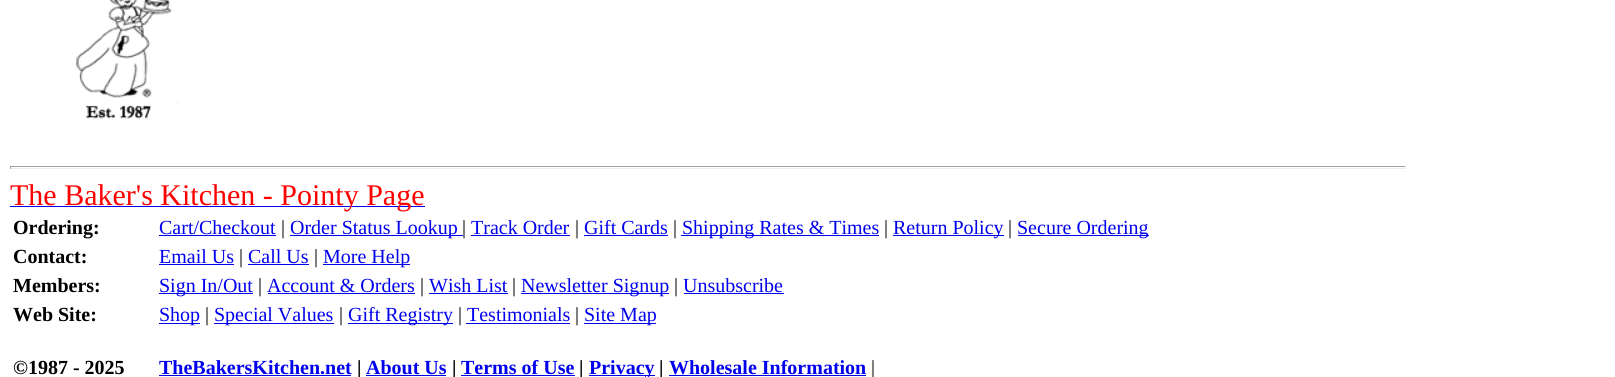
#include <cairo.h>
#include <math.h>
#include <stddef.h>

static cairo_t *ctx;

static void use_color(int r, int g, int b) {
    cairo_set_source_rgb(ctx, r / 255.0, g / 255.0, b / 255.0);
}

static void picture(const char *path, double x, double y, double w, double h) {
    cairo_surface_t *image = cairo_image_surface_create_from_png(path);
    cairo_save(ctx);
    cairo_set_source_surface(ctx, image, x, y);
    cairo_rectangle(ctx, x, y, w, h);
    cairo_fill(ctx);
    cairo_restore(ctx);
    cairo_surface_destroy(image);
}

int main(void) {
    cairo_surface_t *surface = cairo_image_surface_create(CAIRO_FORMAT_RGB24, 1615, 377);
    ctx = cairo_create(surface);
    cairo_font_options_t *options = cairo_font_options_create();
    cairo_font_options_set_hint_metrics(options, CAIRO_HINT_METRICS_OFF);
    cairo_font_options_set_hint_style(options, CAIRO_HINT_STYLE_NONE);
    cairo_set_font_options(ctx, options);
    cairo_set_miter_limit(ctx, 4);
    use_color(255, 255, 255);
    cairo_paint(ctx);
    picture("img1.png", 76, 0, 103, 119);
    use_color(159, 159, 159);
    cairo_rectangle(ctx, 10, 166, 1396, 1);
    cairo_fill(ctx);
    use_color(238, 238, 238);
    cairo_rectangle(ctx, 1405, 166, 1, 3);
    cairo_fill(ctx);
    cairo_rectangle(ctx, 10, 168, 1396, 1);
    cairo_fill(ctx);
    use_color(159, 159, 159);
    cairo_rectangle(ctx, 10, 166, 1, 3);
    cairo_fill(ctx);
    use_color(0, 0, 238);
    cairo_rectangle(ctx, 10, 206, 415, 1);
    cairo_fill(ctx);
    cairo_select_font_face(ctx, "Liberation Serif", CAIRO_FONT_SLANT_NORMAL, CAIRO_FONT_WEIGHT_NORMAL);
    cairo_set_font_size(ctx, 30);
    use_color(255, 0, 0);
    cairo_move_to(ctx, 10, 205);
    cairo_show_text(ctx, "The Baker's Kitchen - Pointy Page");
    cairo_select_font_face(ctx, "Liberation Serif", CAIRO_FONT_SLANT_NORMAL, CAIRO_FONT_WEIGHT_BOLD);
    cairo_set_font_size(ctx, 20);
    use_color(0, 0, 0);
    cairo_move_to(ctx, 13, 234);
    cairo_show_text(ctx, "Ordering:");
    cairo_select_font_face(ctx, "Liberation Serif", CAIRO_FONT_SLANT_NORMAL, CAIRO_FONT_WEIGHT_NORMAL);
    use_color(0, 0, 238);
    cairo_move_to(ctx, 159, 234);
    cairo_show_text(ctx, "Cart/Checkout");
    cairo_rectangle(ctx, 159, 235, 117, 1);
    cairo_fill(ctx);
    use_color(0, 0, 0);
    cairo_move_to(ctx, 281, 234);
    cairo_show_text(ctx, "|");
    use_color(0, 0, 238);
    cairo_rectangle(ctx, 290, 235, 173, 1);
    cairo_fill(ctx);
    cairo_move_to(ctx, 290, 234);
    cairo_show_text(ctx, "Order Status Lookup");
    use_color(0, 0, 0);
    cairo_move_to(ctx, 462, 234);
    cairo_show_text(ctx, "|");
    use_color(0, 0, 238);
    cairo_move_to(ctx, 471, 234);
    cairo_show_text(ctx, "Track Order");
    cairo_rectangle(ctx, 471, 235, 99, 1);
    cairo_fill(ctx);
    use_color(0, 0, 0);
    cairo_move_to(ctx, 575, 234);
    cairo_show_text(ctx, "|");
    use_color(0, 0, 238);
    cairo_move_to(ctx, 584, 234);
    cairo_show_text(ctx, "Gift Cards");
    cairo_rectangle(ctx, 584, 235, 84, 1);
    cairo_fill(ctx);
    use_color(0, 0, 0);
    cairo_move_to(ctx, 673, 234);
    cairo_show_text(ctx, "|");
    use_color(0, 0, 238);
    cairo_rectangle(ctx, 681, 235, 198, 1);
    cairo_fill(ctx);
    cairo_move_to(ctx, 682, 234);
    cairo_show_text(ctx, "Shipping Rates & Times");
    use_color(0, 0, 0);
    cairo_move_to(ctx, 884, 234);
    cairo_show_text(ctx, "|");
    use_color(0, 0, 238);
    cairo_rectangle(ctx, 893, 235, 111, 1);
    cairo_fill(ctx);
    cairo_move_to(ctx, 893, 234);
    cairo_show_text(ctx, "Return Policy");
    use_color(0, 0, 0);
    cairo_move_to(ctx, 1008, 234);
    cairo_show_text(ctx, "|");
    use_color(0, 0, 238);
    cairo_rectangle(ctx, 1018, 235, 131, 1);
    cairo_fill(ctx);
    cairo_move_to(ctx, 1017, 234);
    cairo_show_text(ctx, "Secure Ordering");
    cairo_select_font_face(ctx, "Liberation Serif", CAIRO_FONT_SLANT_NORMAL, CAIRO_FONT_WEIGHT_BOLD);
    use_color(0, 0, 0);
    cairo_move_to(ctx, 13, 263);
    cairo_show_text(ctx, "Contact:");
    cairo_select_font_face(ctx, "Liberation Serif", CAIRO_FONT_SLANT_NORMAL, CAIRO_FONT_WEIGHT_NORMAL);
    use_color(0, 0, 238);
    cairo_move_to(ctx, 159, 263);
    cairo_show_text(ctx, "Email Us");
    cairo_rectangle(ctx, 159, 264, 75, 1);
    cairo_fill(ctx);
    use_color(0, 0, 0);
    cairo_move_to(ctx, 239, 263);
    cairo_show_text(ctx, "|");
    use_color(0, 0, 238);
    cairo_move_to(ctx, 248, 263);
    cairo_show_text(ctx, "Call Us");
    cairo_rectangle(ctx, 248, 264, 61, 1);
    cairo_fill(ctx);
    use_color(0, 0, 0);
    cairo_move_to(ctx, 314, 263);
    cairo_show_text(ctx, "|");
    use_color(0, 0, 238);
    cairo_rectangle(ctx, 323, 264, 87, 1);
    cairo_fill(ctx);
    cairo_move_to(ctx, 323, 263);
    cairo_show_text(ctx, "More Help");
    cairo_select_font_face(ctx, "Liberation Serif", CAIRO_FONT_SLANT_NORMAL, CAIRO_FONT_WEIGHT_BOLD);
    use_color(0, 0, 0);
    cairo_move_to(ctx, 13, 292);
    cairo_show_text(ctx, "Members:");
    use_color(0, 0, 238);
    cairo_rectangle(ctx, 159, 293, 94, 1);
    cairo_fill(ctx);
    cairo_select_font_face(ctx, "Liberation Serif", CAIRO_FONT_SLANT_NORMAL, CAIRO_FONT_WEIGHT_NORMAL);
    cairo_move_to(ctx, 159, 292);
    cairo_show_text(ctx, "Sign In/Out");
    use_color(0, 0, 0);
    cairo_move_to(ctx, 258, 292);
    cairo_show_text(ctx, "|");
    use_color(0, 0, 238);
    cairo_move_to(ctx, 267, 292);
    cairo_show_text(ctx, "Account & Orders");
    cairo_rectangle(ctx, 268, 293, 147, 1);
    cairo_fill(ctx);
    use_color(0, 0, 0);
    cairo_move_to(ctx, 420, 292);
    cairo_show_text(ctx, "|");
    use_color(0, 0, 238);
    cairo_move_to(ctx, 429, 292);
    cairo_show_text(ctx, "Wish List");
    cairo_rectangle(ctx, 429, 293, 79, 1);
    cairo_fill(ctx);
    use_color(0, 0, 0);
    cairo_move_to(ctx, 512, 292);
    cairo_show_text(ctx, "|");
    use_color(0, 0, 238);
    cairo_rectangle(ctx, 521, 293, 148, 1);
    cairo_fill(ctx);
    cairo_move_to(ctx, 521, 292);
    cairo_show_text(ctx, "Newsletter Signup");
    use_color(0, 0, 0);
    cairo_move_to(ctx, 674, 292);
    cairo_show_text(ctx, "|");
    use_color(0, 0, 238);
    cairo_move_to(ctx, 683, 292);
    cairo_show_text(ctx, "Unsubscribe");
    cairo_rectangle(ctx, 684, 293, 100, 1);
    cairo_fill(ctx);
    cairo_select_font_face(ctx, "Liberation Serif", CAIRO_FONT_SLANT_NORMAL, CAIRO_FONT_WEIGHT_BOLD);
    use_color(0, 0, 0);
    cairo_move_to(ctx, 13, 321);
    cairo_show_text(ctx, "Web Site:");
    use_color(0, 0, 238);
    cairo_rectangle(ctx, 159, 323, 41, 1);
    cairo_fill(ctx);
    cairo_select_font_face(ctx, "Liberation Serif", CAIRO_FONT_SLANT_NORMAL, CAIRO_FONT_WEIGHT_NORMAL);
    cairo_move_to(ctx, 159, 321);
    cairo_show_text(ctx, "Shop");
    use_color(0, 0, 0);
    cairo_move_to(ctx, 205, 321);
    cairo_show_text(ctx, "|");
    use_color(0, 0, 238);
    cairo_rectangle(ctx, 214, 323, 120, 1);
    cairo_fill(ctx);
    cairo_move_to(ctx, 214, 321);
    cairo_show_text(ctx, "Special Values");
    use_color(0, 0, 0);
    cairo_move_to(ctx, 339, 321);
    cairo_show_text(ctx, "|");
    use_color(0, 0, 238);
    cairo_rectangle(ctx, 348, 323, 105, 1);
    cairo_fill(ctx);
    cairo_move_to(ctx, 348, 321);
    cairo_show_text(ctx, "Gift Registry");
    use_color(0, 0, 0);
    cairo_move_to(ctx, 458, 321);
    cairo_show_text(ctx, "|");
    use_color(0, 0, 238);
    cairo_move_to(ctx, 467, 321);
    cairo_show_text(ctx, "Testimonials");
    cairo_rectangle(ctx, 466, 323, 104, 1);
    cairo_fill(ctx);
    use_color(0, 0, 0);
    cairo_move_to(ctx, 575, 321);
    cairo_show_text(ctx, "|");
    use_color(0, 0, 238);
    cairo_rectangle(ctx, 584, 323, 72, 1);
    cairo_fill(ctx);
    cairo_move_to(ctx, 584, 321);
    cairo_show_text(ctx, "Site Map");
    cairo_select_font_face(ctx, "Liberation Serif", CAIRO_FONT_SLANT_NORMAL, CAIRO_FONT_WEIGHT_BOLD);
    use_color(0, 0, 0);
    cairo_move_to(ctx, 13, 374);
    cairo_show_text(ctx, "©1987 - 2025");
    use_color(0, 0, 238);
    cairo_move_to(ctx, 159, 374);
    cairo_show_text(ctx, "TheBakersKitchen.net");
    cairo_rectangle(ctx, 159, 375, 192, 1);
    cairo_fill(ctx);
    use_color(0, 0, 0);
    cairo_move_to(ctx, 357, 374);
    cairo_show_text(ctx, "|");
    use_color(0, 0, 238);
    cairo_move_to(ctx, 366, 374);
    cairo_show_text(ctx, "About Us");
    cairo_rectangle(ctx, 366, 375, 80, 1);
    cairo_fill(ctx);
    use_color(0, 0, 0);
    cairo_move_to(ctx, 452, 374);
    cairo_show_text(ctx, "|");
    use_color(0, 0, 238);
    cairo_move_to(ctx, 461, 374);
    cairo_show_text(ctx, "Terms of Use");
    cairo_rectangle(ctx, 461, 375, 114, 1);
    cairo_fill(ctx);
    use_color(0, 0, 0);
    cairo_move_to(ctx, 579, 374);
    cairo_show_text(ctx, "|");
    use_color(0, 0, 238);
    cairo_rectangle(ctx, 589, 375, 66, 1);
    cairo_fill(ctx);
    cairo_move_to(ctx, 589, 374);
    cairo_show_text(ctx, "Privacy");
    use_color(0, 0, 0);
    cairo_move_to(ctx, 659, 374);
    cairo_show_text(ctx, "|");
    use_color(0, 0, 238);
    cairo_move_to(ctx, 669, 374);
    cairo_show_text(ctx, "Wholesale Information");
    cairo_rectangle(ctx, 669, 375, 197, 1);
    cairo_fill(ctx);
    cairo_select_font_face(ctx, "Liberation Serif", CAIRO_FONT_SLANT_NORMAL, CAIRO_FONT_WEIGHT_NORMAL);
    use_color(0, 0, 0);
    cairo_move_to(ctx, 871, 374);
    cairo_show_text(ctx, "|");
    cairo_surface_write_to_png(surface, "result.png");
    cairo_font_options_destroy(options);
    cairo_destroy(ctx);
    cairo_surface_destroy(surface);
    return 0;
}
